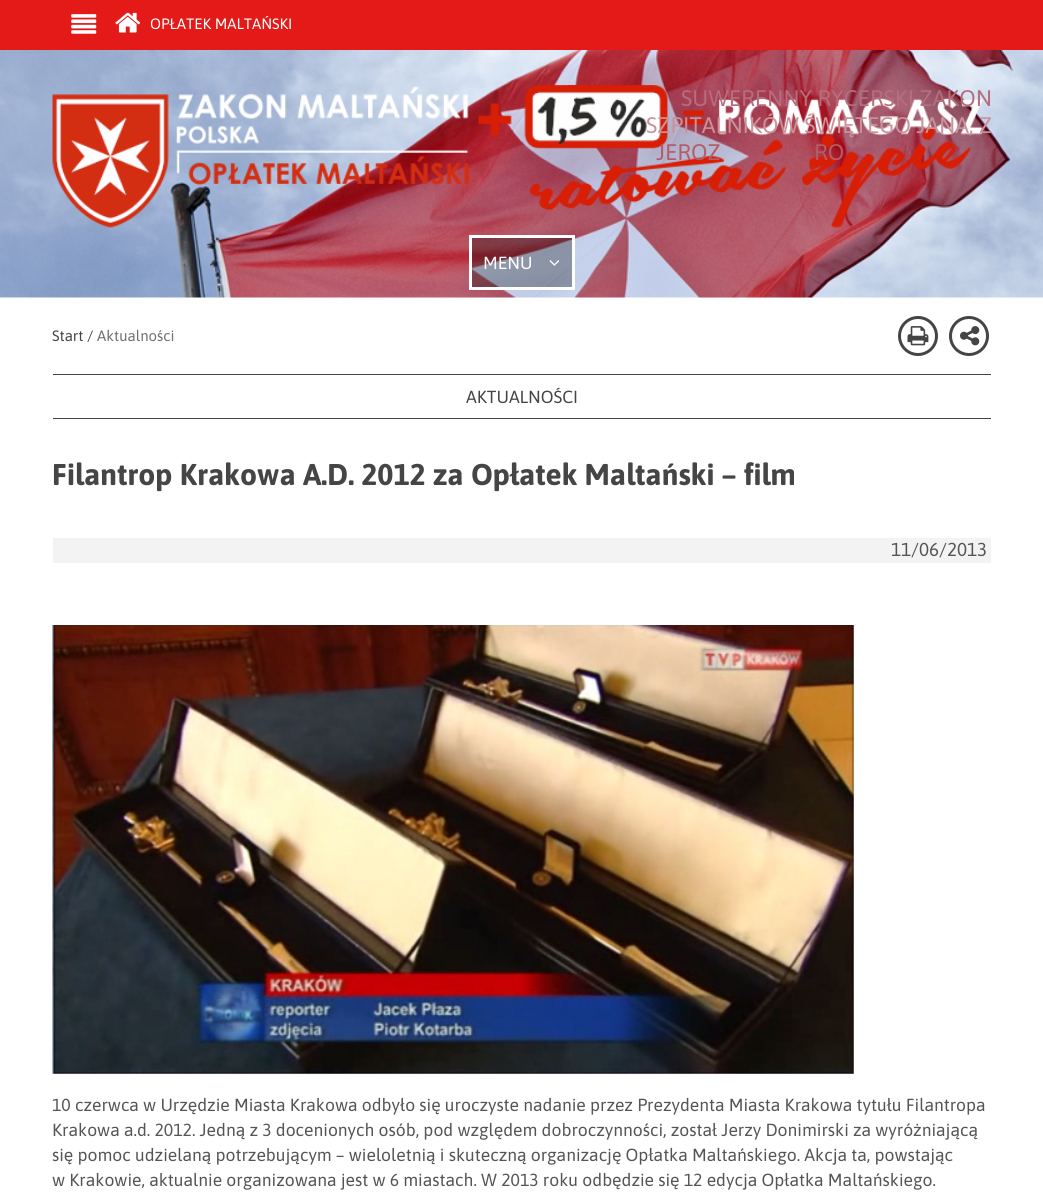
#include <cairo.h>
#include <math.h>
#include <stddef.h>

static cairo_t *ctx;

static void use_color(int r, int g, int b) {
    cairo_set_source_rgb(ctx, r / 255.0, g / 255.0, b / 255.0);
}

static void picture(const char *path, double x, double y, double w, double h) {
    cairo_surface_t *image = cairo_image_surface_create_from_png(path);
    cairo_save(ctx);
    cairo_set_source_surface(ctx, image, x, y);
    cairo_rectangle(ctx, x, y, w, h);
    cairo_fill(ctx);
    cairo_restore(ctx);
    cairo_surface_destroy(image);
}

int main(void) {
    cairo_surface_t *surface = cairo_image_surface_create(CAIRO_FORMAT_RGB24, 1043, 1199);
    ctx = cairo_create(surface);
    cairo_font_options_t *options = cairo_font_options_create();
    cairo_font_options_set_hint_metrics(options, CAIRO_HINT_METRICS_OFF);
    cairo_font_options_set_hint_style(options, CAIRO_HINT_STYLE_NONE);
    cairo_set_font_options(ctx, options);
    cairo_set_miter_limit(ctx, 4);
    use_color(255, 255, 255);
    cairo_paint(ctx);
    use_color(227, 26, 24);
    cairo_rectangle(ctx, 0, 0, 1043, 50);
    cairo_fill(ctx);
    picture("img1.png", 71, 14, 26, 20);
    picture("img2.png", 115, 12, 26, 21);
    cairo_select_font_face(ctx, "Asap", CAIRO_FONT_SLANT_NORMAL, CAIRO_FONT_WEIGHT_NORMAL);
    cairo_set_font_size(ctx, 15);
    use_color(255, 255, 255);
    cairo_move_to(ctx, 150, 29);
    cairo_show_text(ctx, "OPŁATEK MALTAŃSKI");
    picture("img3.png", 0, 50, 1043, 248);
    picture("img4.png", 52, 85, 931, 143);
    cairo_set_font_size(ctx, 22.5);
    use_color(181, 110, 126);
    cairo_move_to(ctx, 681, 106);
    cairo_show_text(ctx, "SUWERENNY RYCERSKI ZAKON");
    use_color(202, 146, 155);
    cairo_move_to(ctx, 646, 133);
    cairo_show_text(ctx, "SZPITALNIKÓW ŚWIĘTEGO JANA, Z");
    use_color(180, 92, 103);
    cairo_move_to(ctx, 656, 160);
    cairo_show_text(ctx, "JEROZ");
    cairo_move_to(ctx, 814, 160);
    cairo_show_text(ctx, "RO");
    cairo_set_source_rgba(ctx, 0, 0, 0, 0.3);
    cairo_rectangle(ctx, 470.5, 236.5, 103, 52);
    cairo_fill_preserve(ctx);
    use_color(255, 255, 255);
    cairo_set_line_width(ctx, 3);
    cairo_stroke(ctx);
    cairo_set_font_size(ctx, 17.5);
    cairo_move_to(ctx, 483, 269);
    cairo_show_text(ctx, "MENU");
    picture("img5.png", 549, 260, 11, 6);
    cairo_arc(ctx, 918, 336, 18.5, 0, 2 * M_PI);
    use_color(69, 69, 69);
    cairo_stroke(ctx);
    picture("img6.png", 907, 326, 22, 20);
    cairo_arc(ctx, 969, 336, 18.5, 0, 2 * M_PI);
    cairo_stroke(ctx);
    picture("img7.png", 960, 326, 20, 20);
    cairo_set_font_size(ctx, 15);
    cairo_move_to(ctx, 52, 341);
    cairo_show_text(ctx, "Start /");
    use_color(113, 113, 113);
    cairo_move_to(ctx, 97, 341);
    cairo_show_text(ctx, "Aktualności");
    use_color(69, 69, 69);
    cairo_rectangle(ctx, 53, 374, 938, 1);
    cairo_fill(ctx);
    cairo_rectangle(ctx, 53, 418, 938, 1);
    cairo_fill(ctx);
    cairo_set_font_size(ctx, 17.5);
    cairo_move_to(ctx, 466, 403);
    cairo_show_text(ctx, "AKTUALNOŚCI");
    cairo_select_font_face(ctx, "Asap", CAIRO_FONT_SLANT_NORMAL, CAIRO_FONT_WEIGHT_BOLD);
    cairo_set_font_size(ctx, 30);
    cairo_move_to(ctx, 52, 485);
    cairo_show_text(ctx, "Filantrop Krakowa A.D. 2012 za Opłatek Maltański – film");
    use_color(243, 243, 243);
    cairo_rectangle(ctx, 53, 538, 938, 25);
    cairo_fill(ctx);
    cairo_select_font_face(ctx, "Asap", CAIRO_FONT_SLANT_NORMAL, CAIRO_FONT_WEIGHT_NORMAL);
    cairo_set_font_size(ctx, 18.75);
    use_color(85, 85, 85);
    cairo_move_to(ctx, 891, 556);
    cairo_show_text(ctx, "11/06/2013");
    picture("img8.png", 52, 625, 802, 449);
    cairo_set_font_size(ctx, 17.5);
    cairo_move_to(ctx, 52, 1111);
    cairo_show_text(ctx, "10 czerwca w Urzędzie Miasta Krakowa odbyło się uroczyste nadanie przez Prezydenta Miasta Krakowa tytułu Filantropa");
    cairo_move_to(ctx, 52, 1136);
    cairo_show_text(ctx, "Krakowa a.d. 2012. Jedną z 3 docenionych osób, pod względem dobroczynności, został Jerzy Donimirski za wyróżniającą");
    cairo_move_to(ctx, 52, 1161);
    cairo_show_text(ctx, "się pomoc udzielaną potrzebującym – wieloletnią i skuteczną organizację Opłatka Maltańskiego. Akcja ta, powstając");
    cairo_move_to(ctx, 52, 1186);
    cairo_show_text(ctx, "w Krakowie, aktualnie organizowana jest w 6 miastach. W 2013 roku odbędzie się 12 edycja Opłatka Maltańskiego.");
    cairo_surface_write_to_png(surface, "result.png");
    cairo_font_options_destroy(options);
    cairo_destroy(ctx);
    cairo_surface_destroy(surface);
    return 0;
}
